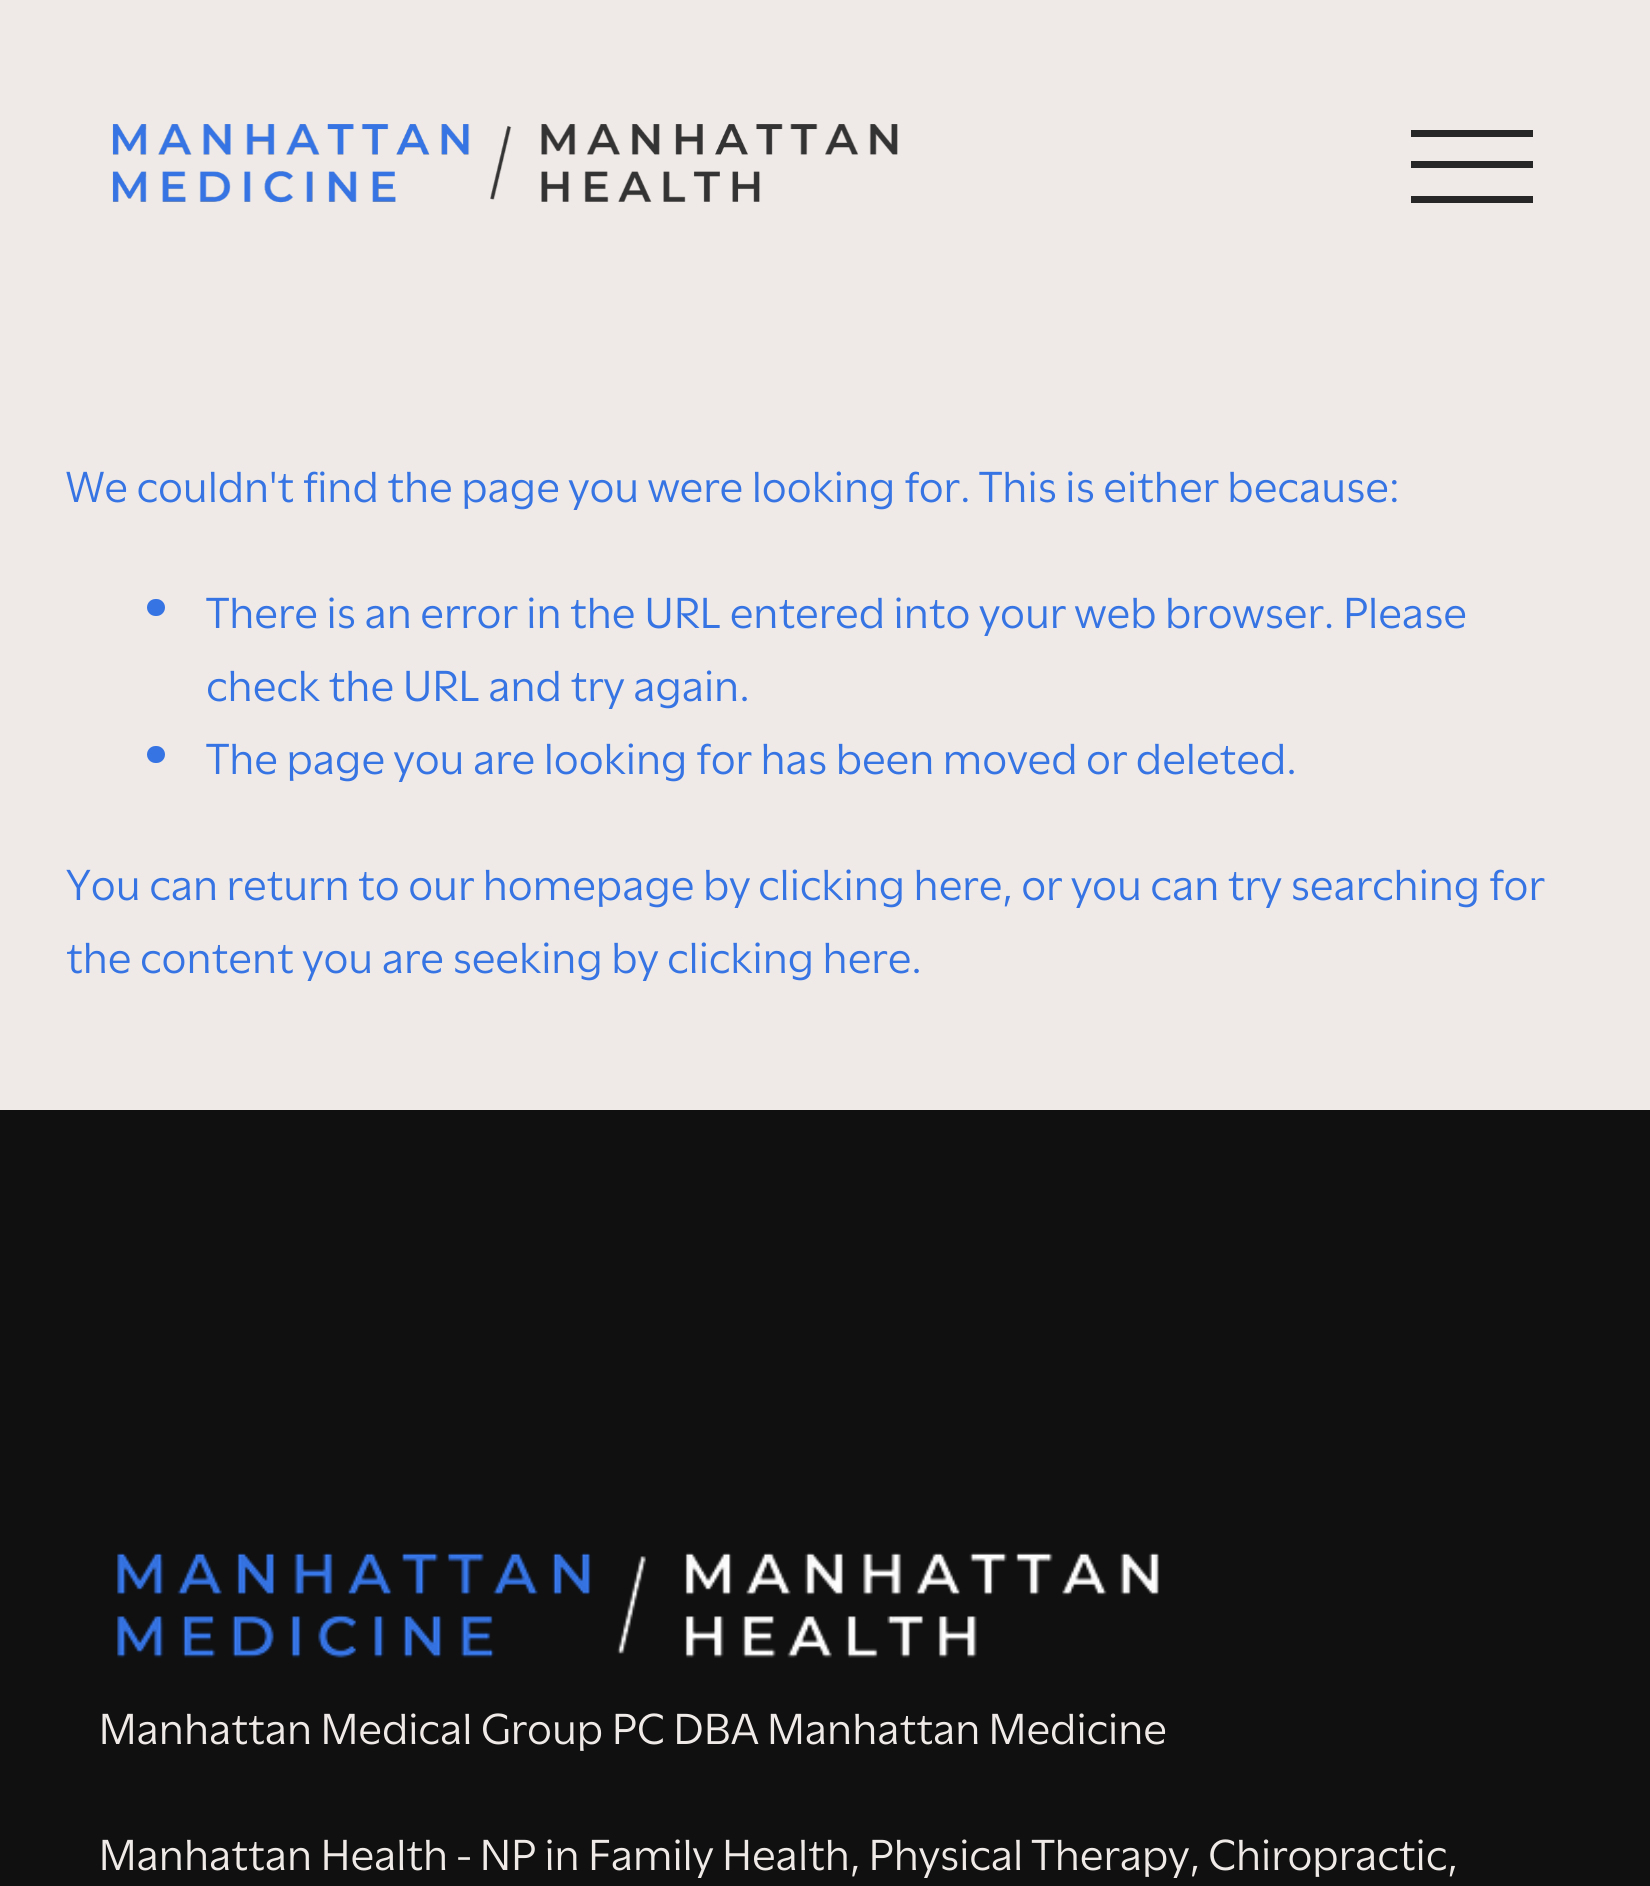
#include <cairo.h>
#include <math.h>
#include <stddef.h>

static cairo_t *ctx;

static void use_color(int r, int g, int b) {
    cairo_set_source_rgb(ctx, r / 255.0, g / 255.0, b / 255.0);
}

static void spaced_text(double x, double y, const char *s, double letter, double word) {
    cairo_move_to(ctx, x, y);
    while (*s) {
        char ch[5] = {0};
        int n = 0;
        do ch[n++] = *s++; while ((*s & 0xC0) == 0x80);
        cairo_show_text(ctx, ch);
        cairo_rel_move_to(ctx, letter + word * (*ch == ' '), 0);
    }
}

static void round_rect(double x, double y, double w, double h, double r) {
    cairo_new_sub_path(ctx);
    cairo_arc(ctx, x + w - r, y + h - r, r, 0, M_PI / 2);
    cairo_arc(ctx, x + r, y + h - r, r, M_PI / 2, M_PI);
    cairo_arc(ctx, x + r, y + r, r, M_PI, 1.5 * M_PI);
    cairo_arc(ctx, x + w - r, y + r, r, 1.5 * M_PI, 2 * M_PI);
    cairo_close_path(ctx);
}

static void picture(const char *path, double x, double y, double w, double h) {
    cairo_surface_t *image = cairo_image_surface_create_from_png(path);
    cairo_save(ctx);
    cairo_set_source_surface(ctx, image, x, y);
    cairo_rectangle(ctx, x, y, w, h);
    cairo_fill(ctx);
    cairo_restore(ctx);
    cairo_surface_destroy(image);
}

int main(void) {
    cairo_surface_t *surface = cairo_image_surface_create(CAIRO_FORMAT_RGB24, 1650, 1886);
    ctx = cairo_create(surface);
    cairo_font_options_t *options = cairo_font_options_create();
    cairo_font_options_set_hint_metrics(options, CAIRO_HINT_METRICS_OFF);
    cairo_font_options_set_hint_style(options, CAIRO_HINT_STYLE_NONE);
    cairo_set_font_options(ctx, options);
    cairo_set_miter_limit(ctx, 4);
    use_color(239, 234, 231);
    cairo_paint(ctx);
    picture("img1.png", 112, 124, 786, 79);
    use_color(40, 39, 39);
    cairo_rectangle(ctx, 1411, 130, 122, 7);
    cairo_fill(ctx);
    cairo_rectangle(ctx, 1411, 161, 122, 7);
    cairo_fill(ctx);
    cairo_rectangle(ctx, 1411, 196, 122, 7);
    cairo_fill(ctx);
    cairo_select_font_face(ctx, "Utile", CAIRO_FONT_SLANT_NORMAL, CAIRO_FONT_WEIGHT_NORMAL);
    cairo_set_font_size(ctx, 45.7);
    use_color(54, 116, 228);
    cairo_move_to(ctx, 66, 502);
    cairo_show_text(ctx, "We couldn't find the page you were looking for. This is either because:");
    round_rect(147, 599, 18, 17, 8.5);
    cairo_fill(ctx);
    cairo_move_to(ctx, 206, 628);
    cairo_show_text(ctx, "There is an error in the URL entered into your web browser. Please");
    cairo_move_to(ctx, 206, 701);
    cairo_show_text(ctx, "check the URL and try again.");
    round_rect(147, 746, 18, 17, 8.5);
    cairo_fill(ctx);
    cairo_move_to(ctx, 206, 774);
    cairo_show_text(ctx, "The page you are looking for has been moved or deleted.");
    cairo_move_to(ctx, 66, 900);
    cairo_show_text(ctx, "You can return to our homepage by");
    cairo_move_to(ctx, 758, 900);
    cairo_show_text(ctx, "clicking here, or you can try searching for");
    cairo_move_to(ctx, 66, 973);
    cairo_show_text(ctx, "the content you are seeking by");
    cairo_move_to(ctx, 667, 973);
    cairo_show_text(ctx, "clicking here.");
    use_color(16, 16, 16);
    cairo_rectangle(ctx, 0, 1110, 1650, 776);
    cairo_fill(ctx);
    picture("img2.png", 117, 1552, 1042, 106);
    use_color(239, 234, 231);
    cairo_move_to(ctx, 99, 1744);
    cairo_show_text(ctx, "Manhattan Medical Group PC DBA Manhattan Medicine");
    spaced_text(99, 1870, "Manhattan Health - NP in Family Health, Physical Therapy, Chiropractic,", 0, -0.25);
    cairo_surface_write_to_png(surface, "result.png");
    cairo_font_options_destroy(options);
    cairo_destroy(ctx);
    cairo_surface_destroy(surface);
    return 0;
}
